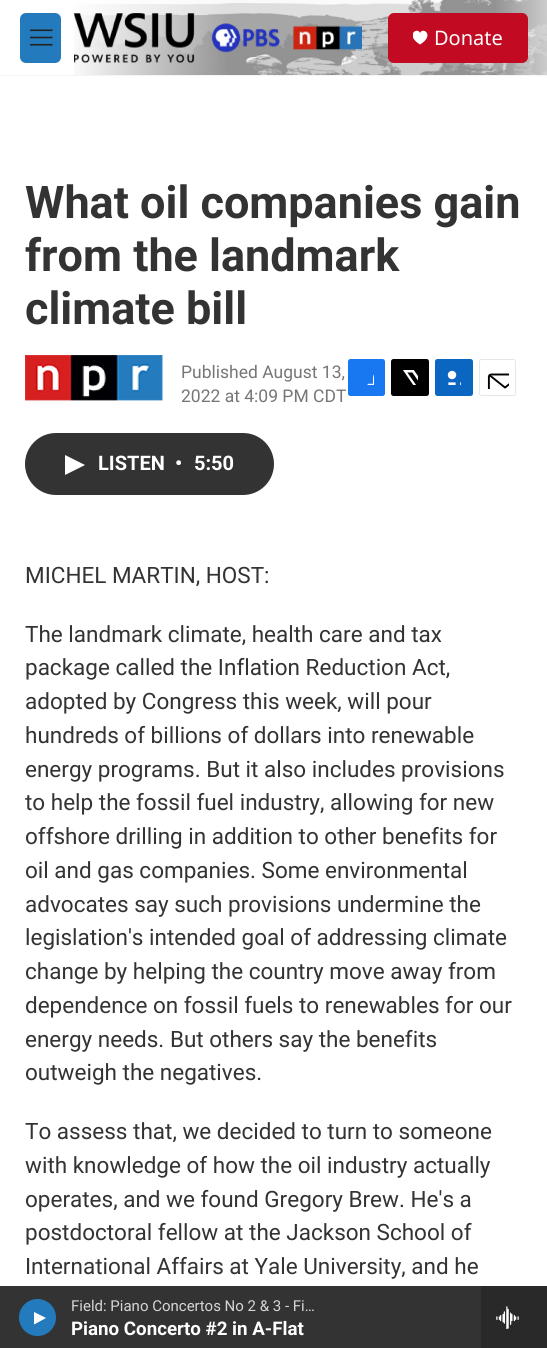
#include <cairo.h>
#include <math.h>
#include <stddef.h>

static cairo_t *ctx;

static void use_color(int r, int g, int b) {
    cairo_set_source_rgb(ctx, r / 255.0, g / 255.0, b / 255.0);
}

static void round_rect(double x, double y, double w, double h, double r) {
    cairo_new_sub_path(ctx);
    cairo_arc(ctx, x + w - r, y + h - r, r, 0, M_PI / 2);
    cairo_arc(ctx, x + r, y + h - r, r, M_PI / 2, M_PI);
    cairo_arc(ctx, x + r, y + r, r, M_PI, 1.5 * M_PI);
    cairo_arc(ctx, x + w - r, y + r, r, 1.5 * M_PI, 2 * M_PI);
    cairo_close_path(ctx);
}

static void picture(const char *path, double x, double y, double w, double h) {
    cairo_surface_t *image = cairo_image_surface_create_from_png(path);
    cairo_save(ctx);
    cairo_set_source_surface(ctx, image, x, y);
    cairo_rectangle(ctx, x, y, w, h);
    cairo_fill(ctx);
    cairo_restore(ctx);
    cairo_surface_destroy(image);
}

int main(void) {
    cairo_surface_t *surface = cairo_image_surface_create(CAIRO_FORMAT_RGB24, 547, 1348);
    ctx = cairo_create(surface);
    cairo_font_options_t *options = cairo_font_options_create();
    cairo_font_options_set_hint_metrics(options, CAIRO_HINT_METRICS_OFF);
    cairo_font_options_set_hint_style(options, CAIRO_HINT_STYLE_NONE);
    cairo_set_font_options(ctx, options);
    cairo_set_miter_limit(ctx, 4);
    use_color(255, 255, 255);
    cairo_paint(ctx);
    use_color(245, 245, 245);
    cairo_rectangle(ctx, 0, 75, 547, 1);
    cairo_fill(ctx);
    picture("img1.png", 74, 0, 473, 75);
    use_color(35, 123, 189);
    round_rect(20, 13, 41, 50, 6);
    cairo_fill(ctx);
    picture("img2.png", 30, 29, 23, 17);
    picture("img3.png", 74, 13, 288, 50);
    use_color(194, 10, 34);
    round_rect(388, 13, 140, 50, 6);
    cairo_fill(ctx);
    cairo_save(ctx);
    cairo_rectangle(ctx, 413, 30, 15, 15);
    cairo_clip(ctx);
    use_color(255, 255, 255);
    cairo_new_path(ctx);
    cairo_move_to(ctx, 420, 33);
    cairo_curve_to(ctx, 417.5, 26.5, 404.5, 35, 420, 44.5);
    cairo_curve_to(ctx, 435.5, 35, 422.5, 26.5, 420, 33);
    cairo_close_path(ctx);
    cairo_fill(ctx);
    cairo_restore(ctx);
    cairo_select_font_face(ctx, "Noto Sans", CAIRO_FONT_SLANT_NORMAL, CAIRO_FONT_WEIGHT_NORMAL);
    cairo_set_font_size(ctx, 20);
    use_color(255, 255, 255);
    cairo_move_to(ctx, 434, 45);
    cairo_show_text(ctx, "Donate");
    use_color(51, 51, 51);
    cairo_rectangle(ctx, 0, 1286, 481, 62);
    cairo_fill(ctx);
    use_color(35, 123, 189);
    cairo_arc(ctx, 37.5, 1317.5, 18.5, 0, 2 * M_PI);
    cairo_fill(ctx);
    use_color(255, 255, 255);
    cairo_new_path(ctx);
    cairo_move_to(ctx, 34, 1312);
    cairo_line_to(ctx, 46, 1318);
    cairo_line_to(ctx, 34, 1324.5);
    cairo_close_path(ctx);
    cairo_fill(ctx);
    cairo_select_font_face(ctx, "Roboto", CAIRO_FONT_SLANT_NORMAL, CAIRO_FONT_WEIGHT_NORMAL);
    cairo_set_font_size(ctx, 15);
    use_color(214, 214, 214);
    cairo_move_to(ctx, 71, 1311);
    cairo_show_text(ctx, "Field: Piano Concertos No 2 & 3 - Fi…");
    cairo_select_font_face(ctx, "Roboto", CAIRO_FONT_SLANT_NORMAL, CAIRO_FONT_WEIGHT_BOLD);
    cairo_set_font_size(ctx, 18.75);
    use_color(255, 255, 255);
    cairo_move_to(ctx, 71, 1335);
    cairo_show_text(ctx, "Piano Concerto #2 in A-Flat");
    use_color(41, 41, 41);
    cairo_rectangle(ctx, 481, 1286, 66, 62);
    cairo_fill(ctx);
    picture("img4.png", 496, 1306, 23, 23);
    cairo_set_font_size(ctx, 45);
    use_color(51, 51, 51);
    cairo_move_to(ctx, 25, 218);
    cairo_show_text(ctx, "What oil companies gain");
    cairo_move_to(ctx, 25, 271);
    cairo_show_text(ctx, "from the landmark");
    cairo_move_to(ctx, 25, 324);
    cairo_show_text(ctx, "climate bill");
    picture("img5.png", 25, 355, 138, 46);
    cairo_select_font_face(ctx, "Roboto", CAIRO_FONT_SLANT_NORMAL, CAIRO_FONT_WEIGHT_NORMAL);
    cairo_set_font_size(ctx, 17.5);
    use_color(118, 118, 118);
    cairo_move_to(ctx, 181, 378);
    cairo_show_text(ctx, "Published August 13,");
    cairo_move_to(ctx, 181, 402);
    cairo_show_text(ctx, "2022 at 4:09 PM CDT");
    use_color(23, 120, 242);
    round_rect(348, 359, 37, 37, 2.5);
    cairo_fill(ctx);
    picture("img6.png", 367, 374, 7, 11);
    use_color(0, 0, 0);
    round_rect(391, 359, 38, 37, 2.5);
    cairo_fill(ctx);
    picture("img7.png", 403, 370, 15, 15);
    use_color(10, 102, 193);
    round_rect(435, 359, 38, 37, 2.5);
    cairo_fill(ctx);
    picture("img8.png", 447, 370, 14, 15);
    round_rect(479.5, 359.5, 36, 36, 2);
    use_color(230, 230, 230);
    cairo_set_line_width(ctx, 1);
    cairo_stroke(ctx);
    picture("img9.png", 487, 373, 22, 16);
    use_color(51, 51, 51);
    round_rect(25, 433, 249, 62, 31);
    cairo_fill(ctx);
    use_color(255, 255, 255);
    cairo_new_path(ctx);
    cairo_move_to(ctx, 65, 455);
    cairo_line_to(ctx, 85, 465);
    cairo_line_to(ctx, 65, 475);
    cairo_close_path(ctx);
    cairo_fill(ctx);
    cairo_select_font_face(ctx, "Roboto", CAIRO_FONT_SLANT_NORMAL, CAIRO_FONT_WEIGHT_BOLD);
    cairo_set_font_size(ctx, 20);
    cairo_move_to(ctx, 98, 470);
    cairo_show_text(ctx, "LISTEN");
    cairo_move_to(ctx, 175, 470);
    cairo_show_text(ctx, "•");
    cairo_move_to(ctx, 194, 470);
    cairo_show_text(ctx, "5:50");
    cairo_select_font_face(ctx, "Roboto", CAIRO_FONT_SLANT_NORMAL, CAIRO_FONT_WEIGHT_NORMAL);
    cairo_set_font_size(ctx, 22.5);
    use_color(51, 51, 51);
    cairo_move_to(ctx, 25, 583);
    cairo_show_text(ctx, "MICHEL MARTIN, HOST:");
    cairo_move_to(ctx, 25, 642);
    cairo_show_text(ctx, "The landmark climate, health care and tax");
    cairo_move_to(ctx, 25, 675);
    cairo_show_text(ctx, "package called the Inflation Reduction Act,");
    cairo_move_to(ctx, 25, 709);
    cairo_show_text(ctx, "adopted by Congress this week, will pour");
    cairo_move_to(ctx, 25, 743);
    cairo_show_text(ctx, "hundreds of billions of dollars into renewable");
    cairo_move_to(ctx, 25, 777);
    cairo_show_text(ctx, "energy programs. But it also includes provisions");
    cairo_move_to(ctx, 25, 810);
    cairo_show_text(ctx, "to help the fossil fuel industry, allowing for new");
    cairo_move_to(ctx, 25, 844);
    cairo_show_text(ctx, "offshore drilling in addition to other benefits for");
    cairo_move_to(ctx, 25, 878);
    cairo_show_text(ctx, "oil and gas companies. Some environmental");
    cairo_move_to(ctx, 25, 912);
    cairo_show_text(ctx, "advocates say such provisions undermine the");
    cairo_move_to(ctx, 25, 945);
    cairo_show_text(ctx, "legislation's intended goal of addressing climate");
    cairo_move_to(ctx, 25, 979);
    cairo_show_text(ctx, "change by helping the country move away from");
    cairo_move_to(ctx, 25, 1013);
    cairo_show_text(ctx, "dependence on fossil fuels to renewables for our");
    cairo_move_to(ctx, 25, 1047);
    cairo_show_text(ctx, "energy needs. But others say the benefits");
    cairo_move_to(ctx, 25, 1080);
    cairo_show_text(ctx, "outweigh the negatives.");
    cairo_move_to(ctx, 25, 1139);
    cairo_show_text(ctx, "To assess that, we decided to turn to someone");
    cairo_move_to(ctx, 25, 1173);
    cairo_show_text(ctx, "with knowledge of how the oil industry actually");
    cairo_move_to(ctx, 25, 1207);
    cairo_show_text(ctx, "operates, and we found Gregory Brew. He's a");
    cairo_move_to(ctx, 25, 1240);
    cairo_show_text(ctx, "postdoctoral fellow at the Jackson School of");
    cairo_move_to(ctx, 25, 1274);
    cairo_show_text(ctx, "International Affairs at Yale University, and he");
    cairo_surface_write_to_png(surface, "result.png");
    cairo_font_options_destroy(options);
    cairo_destroy(ctx);
    cairo_surface_destroy(surface);
    return 0;
}
